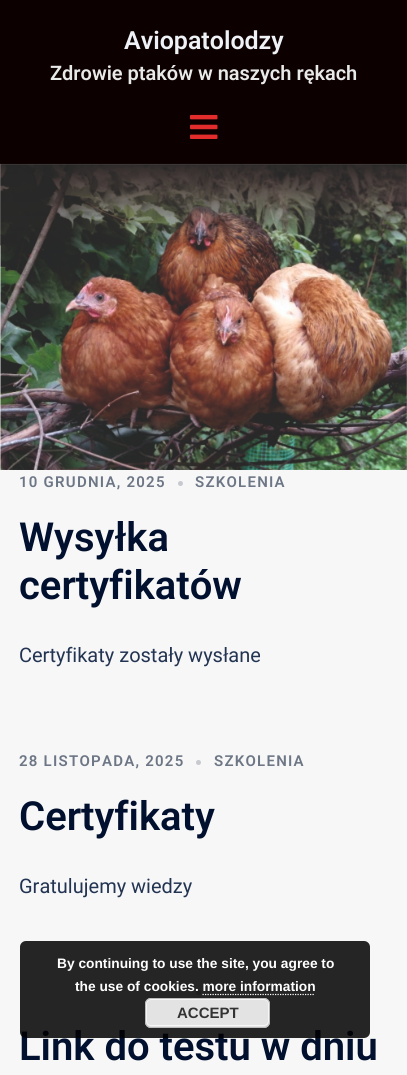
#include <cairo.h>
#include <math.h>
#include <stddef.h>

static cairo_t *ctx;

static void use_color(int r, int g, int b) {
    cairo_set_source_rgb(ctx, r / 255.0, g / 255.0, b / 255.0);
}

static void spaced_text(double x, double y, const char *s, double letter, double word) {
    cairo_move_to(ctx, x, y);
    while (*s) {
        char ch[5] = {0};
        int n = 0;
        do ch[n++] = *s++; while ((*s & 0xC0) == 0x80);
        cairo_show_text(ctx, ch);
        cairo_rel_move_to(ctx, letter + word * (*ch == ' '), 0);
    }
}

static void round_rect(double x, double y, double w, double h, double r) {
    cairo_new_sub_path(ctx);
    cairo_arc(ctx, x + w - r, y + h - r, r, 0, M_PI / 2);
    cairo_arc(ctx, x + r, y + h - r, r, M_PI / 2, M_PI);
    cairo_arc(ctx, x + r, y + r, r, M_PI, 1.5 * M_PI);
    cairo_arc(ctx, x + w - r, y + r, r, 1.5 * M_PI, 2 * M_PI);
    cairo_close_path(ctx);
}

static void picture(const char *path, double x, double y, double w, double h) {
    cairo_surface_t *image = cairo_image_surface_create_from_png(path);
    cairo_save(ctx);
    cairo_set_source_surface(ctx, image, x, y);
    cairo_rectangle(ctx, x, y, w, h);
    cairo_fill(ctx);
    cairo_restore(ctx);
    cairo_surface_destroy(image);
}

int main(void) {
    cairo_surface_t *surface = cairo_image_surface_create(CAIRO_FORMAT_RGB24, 407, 1075);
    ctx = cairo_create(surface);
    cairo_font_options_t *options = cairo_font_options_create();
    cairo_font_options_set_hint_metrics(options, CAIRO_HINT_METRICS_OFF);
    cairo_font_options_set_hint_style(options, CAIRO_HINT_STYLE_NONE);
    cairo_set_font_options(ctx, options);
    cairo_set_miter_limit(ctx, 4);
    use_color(247, 247, 247);
    cairo_paint(ctx);
    use_color(13, 0, 0);
    cairo_rectangle(ctx, 0, 0, 407, 164);
    cairo_fill(ctx);
    cairo_select_font_face(ctx, "Roboto SemiBold", CAIRO_FONT_SLANT_NORMAL, CAIRO_FONT_WEIGHT_NORMAL);
    cairo_set_font_size(ctx, 25);
    use_color(238, 241, 245);
    cairo_move_to(ctx, 124, 49);
    cairo_show_text(ctx, "Aviopatolodzy");
    cairo_set_font_size(ctx, 20);
    use_color(232, 233, 233);
    cairo_move_to(ctx, 50, 80);
    cairo_show_text(ctx, "Zdrowie ptaków w naszych rękach");
    picture("img1.png", 190, 114, 28, 25);
    picture("img2.png", 0, 163, 407, 307);
    cairo_set_font_size(ctx, 15);
    use_color(109, 118, 133);
    spaced_text(19, 487, "10 GRUDNIA, 2025", 1.25, 0);
    use_color(198, 201, 207);
    cairo_new_path(ctx);
    cairo_arc(ctx, 180.5, 483.5, 2.5, 0, 2 * M_PI);
    cairo_fill(ctx);
    use_color(109, 118, 133);
    spaced_text(195, 487, "SZKOLENIA", 1.25, 0);
    cairo_set_font_size(ctx, 40);
    use_color(0, 16, 46);
    cairo_move_to(ctx, 19, 551);
    cairo_show_text(ctx, "Wysyłka");
    cairo_move_to(ctx, 19, 599);
    cairo_show_text(ctx, "certyfikatów");
    cairo_select_font_face(ctx, "Roboto", CAIRO_FONT_SLANT_NORMAL, CAIRO_FONT_WEIGHT_NORMAL);
    cairo_set_font_size(ctx, 20);
    use_color(35, 52, 82);
    cairo_move_to(ctx, 19, 662);
    cairo_show_text(ctx, "Certyfikaty zostały wysłane");
    cairo_select_font_face(ctx, "Roboto SemiBold", CAIRO_FONT_SLANT_NORMAL, CAIRO_FONT_WEIGHT_NORMAL);
    cairo_set_font_size(ctx, 15);
    use_color(109, 118, 133);
    spaced_text(19, 766, "28 LISTOPADA, 2025", 1.25, 0);
    use_color(198, 201, 207);
    cairo_new_path(ctx);
    cairo_arc(ctx, 198.5, 762.5, 2.5, 0, 2 * M_PI);
    cairo_fill(ctx);
    use_color(109, 118, 133);
    spaced_text(214, 766, "SZKOLENIA", 1.25, 0);
    cairo_set_font_size(ctx, 40);
    use_color(0, 16, 46);
    cairo_move_to(ctx, 19, 830);
    cairo_show_text(ctx, "Certyfikaty");
    cairo_select_font_face(ctx, "Roboto", CAIRO_FONT_SLANT_NORMAL, CAIRO_FONT_WEIGHT_NORMAL);
    cairo_set_font_size(ctx, 20);
    use_color(35, 52, 82);
    cairo_move_to(ctx, 19, 893);
    cairo_show_text(ctx, "Gratulujemy wiedzy");
    use_color(198, 201, 207);
    cairo_new_path(ctx);
    cairo_arc(ctx, 198.5, 992.5, 2.5, 0, 2 * M_PI);
    cairo_fill(ctx);
    cairo_select_font_face(ctx, "Roboto SemiBold", CAIRO_FONT_SLANT_NORMAL, CAIRO_FONT_WEIGHT_NORMAL);
    cairo_set_font_size(ctx, 40);
    use_color(0, 16, 46);
    cairo_move_to(ctx, 19, 1060);
    cairo_show_text(ctx, "Link do testu w dniu");
    cairo_set_source_rgba(ctx, 0, 0, 0, 0.85);
    round_rect(20, 941, 350, 97, 6);
    cairo_fill(ctx);
    cairo_select_font_face(ctx, "Liberation Sans", CAIRO_FONT_SLANT_NORMAL, CAIRO_FONT_WEIGHT_BOLD);
    cairo_set_font_size(ctx, 13.75);
    use_color(255, 255, 255);
    cairo_move_to(ctx, 57, 968);
    cairo_show_text(ctx, "By continuing to use the site, you agree to");
    cairo_move_to(ctx, 75, 991);
    cairo_show_text(ctx, "the use of cookies. more information");
    cairo_new_path(ctx);
    cairo_move_to(ctx, 202.5, 994.5);
    cairo_line_to(ctx, 315, 994.5);
    cairo_set_line_width(ctx, 1.2);
    cairo_set_dash(ctx, (double[]){1.25, 1.25}, 2, 0);
    cairo_stroke(ctx);
    use_color(227, 227, 227);
    round_rect(145, 998, 125, 30, 6);
    cairo_fill(ctx);
    round_rect(146.5, 999.5, 122, 26, 4.5);
    use_color(246, 246, 246);
    cairo_set_line_width(ctx, 1);
    cairo_set_dash(ctx, NULL, 0, 0);
    cairo_stroke(ctx);
    round_rect(145.5, 998.5, 124, 29, 5.5);
    use_color(187, 187, 187);
    cairo_stroke(ctx);
    cairo_set_font_size(ctx, 15);
    use_color(51, 51, 51);
    cairo_move_to(ctx, 177, 1018);
    cairo_show_text(ctx, "ACCEPT");
    cairo_surface_write_to_png(surface, "result.png");
    cairo_font_options_destroy(options);
    cairo_destroy(ctx);
    cairo_surface_destroy(surface);
    return 0;
}
